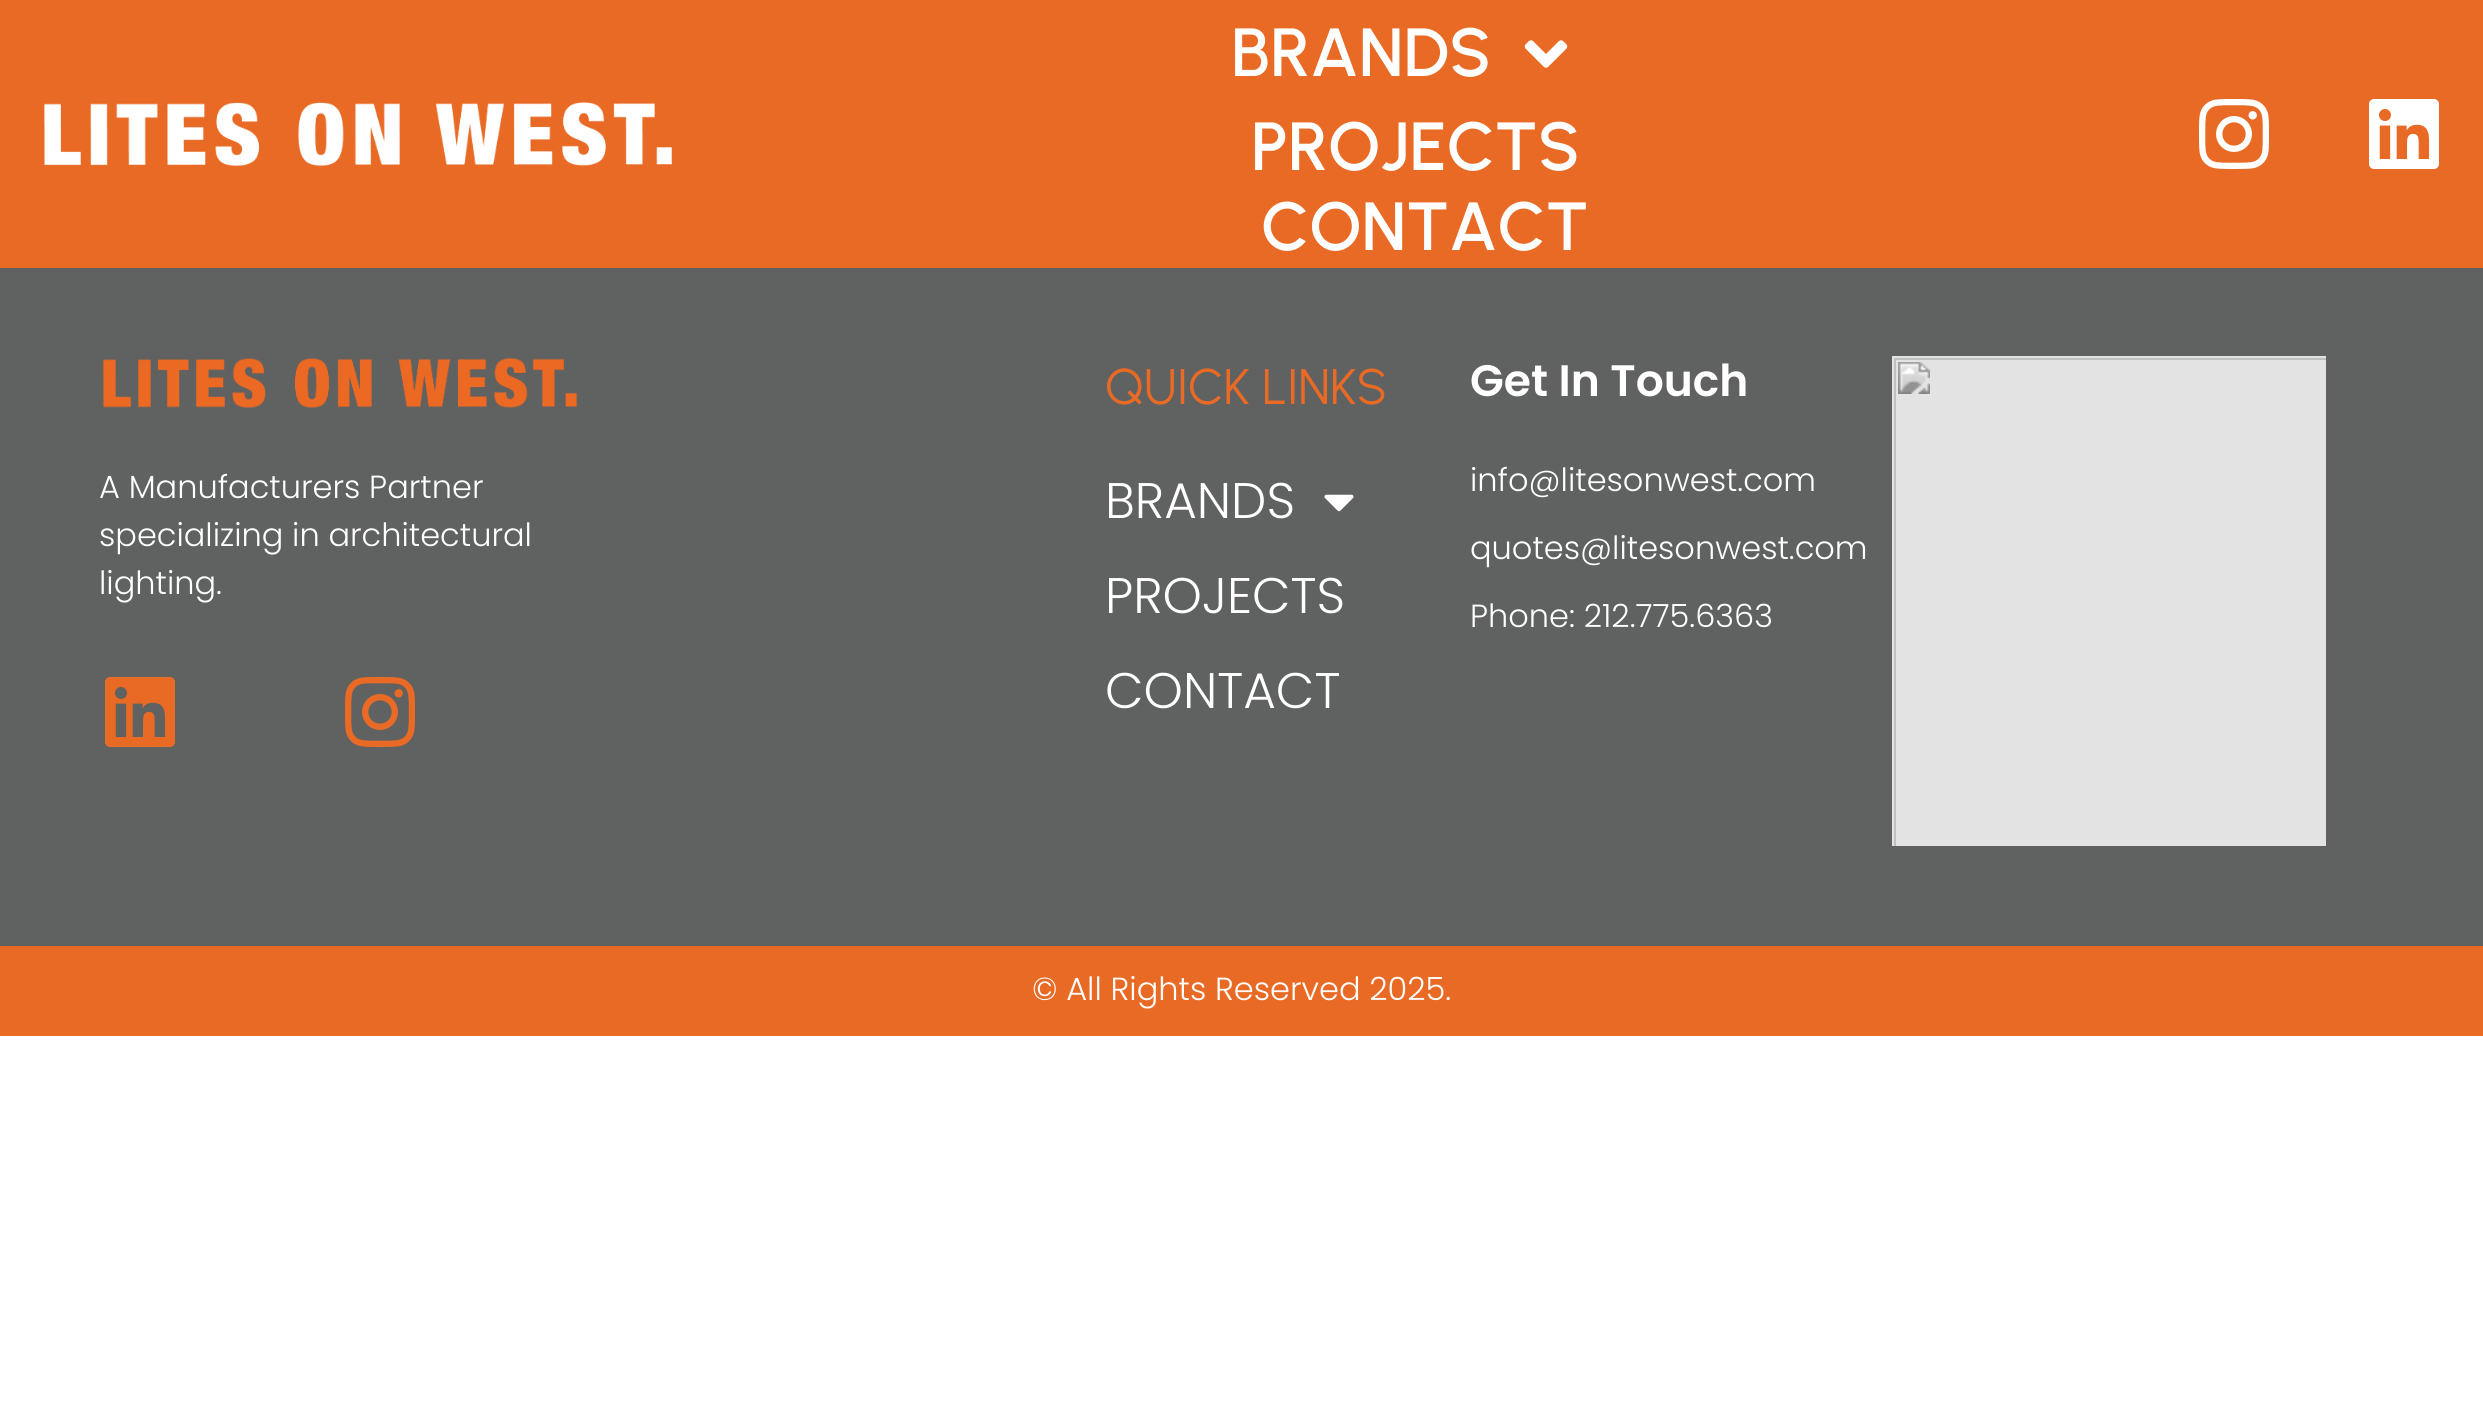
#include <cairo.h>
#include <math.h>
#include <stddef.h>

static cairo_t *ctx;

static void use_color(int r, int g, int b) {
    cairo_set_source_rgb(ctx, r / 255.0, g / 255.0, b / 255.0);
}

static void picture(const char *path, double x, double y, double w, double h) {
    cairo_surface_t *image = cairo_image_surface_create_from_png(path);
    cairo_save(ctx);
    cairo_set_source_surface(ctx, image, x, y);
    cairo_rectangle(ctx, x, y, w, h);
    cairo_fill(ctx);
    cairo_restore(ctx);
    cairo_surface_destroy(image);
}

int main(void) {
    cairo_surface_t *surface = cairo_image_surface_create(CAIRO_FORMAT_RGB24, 2483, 1422);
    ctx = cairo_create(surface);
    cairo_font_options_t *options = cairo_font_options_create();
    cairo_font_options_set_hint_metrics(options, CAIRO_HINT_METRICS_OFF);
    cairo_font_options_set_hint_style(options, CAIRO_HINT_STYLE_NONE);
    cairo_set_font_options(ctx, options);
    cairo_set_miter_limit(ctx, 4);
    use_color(255, 255, 255);
    cairo_paint(ctx);
    use_color(233, 106, 37);
    cairo_rectangle(ctx, 0, 0, 2483, 268);
    cairo_fill(ctx);
    picture("img1.png", 44, 102, 628, 65);
    cairo_select_font_face(ctx, "Urbanist SemiBold", CAIRO_FONT_SLANT_NORMAL, CAIRO_FONT_WEIGHT_NORMAL);
    cairo_set_font_size(ctx, 68);
    use_color(255, 255, 255);
    cairo_move_to(ctx, 1231, 76);
    cairo_show_text(ctx, "BRANDS");
    picture("img2.png", 1524, 40, 44, 28);
    cairo_move_to(ctx, 1251, 170);
    cairo_show_text(ctx, "PROJECTS");
    cairo_move_to(ctx, 1261, 250);
    cairo_show_text(ctx, "CONTACT");
    picture("img3.png", 2199, 99, 70, 70);
    picture("img4.png", 2369, 99, 70, 70);
    use_color(96, 97, 97);
    cairo_rectangle(ctx, 0, 268, 2483, 678);
    cairo_fill(ctx);
    picture("img5.png", 102, 357, 476, 51);
    cairo_select_font_face(ctx, "Poppins Light", CAIRO_FONT_SLANT_NORMAL, CAIRO_FONT_WEIGHT_NORMAL);
    cairo_set_font_size(ctx, 32);
    use_color(255, 255, 255);
    cairo_move_to(ctx, 99, 498);
    cairo_show_text(ctx, "A Manufacturers Partner");
    cairo_move_to(ctx, 99, 546);
    cairo_show_text(ctx, "specializing in architectural");
    cairo_move_to(ctx, 99, 594);
    cairo_show_text(ctx, "lighting.");
    picture("img6.png", 105, 677, 70, 70);
    picture("img7.png", 345, 677, 70, 70);
    cairo_select_font_face(ctx, "Urbanist", CAIRO_FONT_SLANT_NORMAL, CAIRO_FONT_WEIGHT_NORMAL);
    cairo_set_font_size(ctx, 50);
    use_color(233, 106, 37);
    cairo_move_to(ctx, 1105, 404);
    cairo_show_text(ctx, "QUICK LINKS");
    cairo_select_font_face(ctx, "Poppins Light", CAIRO_FONT_SLANT_NORMAL, CAIRO_FONT_WEIGHT_NORMAL);
    use_color(255, 255, 255);
    cairo_move_to(ctx, 1105, 518);
    cairo_show_text(ctx, "BRANDS");
    picture("img8.png", 1324, 494, 30, 18);
    cairo_move_to(ctx, 1105, 613);
    cairo_show_text(ctx, "PROJECTS");
    cairo_move_to(ctx, 1105, 708);
    cairo_show_text(ctx, "CONTACT");
    cairo_select_font_face(ctx, "Poppins SemiBold", CAIRO_FONT_SLANT_NORMAL, CAIRO_FONT_WEIGHT_NORMAL);
    cairo_set_font_size(ctx, 44);
    cairo_move_to(ctx, 1470, 396);
    cairo_show_text(ctx, "Get In Touch");
    cairo_select_font_face(ctx, "Poppins Light", CAIRO_FONT_SLANT_NORMAL, CAIRO_FONT_WEIGHT_NORMAL);
    cairo_set_font_size(ctx, 32);
    cairo_move_to(ctx, 1470, 491);
    cairo_show_text(ctx, "info@litesonwest.com");
    cairo_move_to(ctx, 1470, 559);
    cairo_show_text(ctx, "quotes@litesonwest.com");
    cairo_move_to(ctx, 1470, 627);
    cairo_show_text(ctx, "Phone: 212.775.6363");
    picture("img9.png", 1892, 356, 434, 490);
    use_color(233, 106, 37);
    cairo_rectangle(ctx, 0, 946, 2483, 90);
    cairo_fill(ctx);
    use_color(255, 255, 255);
    cairo_move_to(ctx, 1032, 1000);
    cairo_show_text(ctx, "© All Rights Reserved 2025.");
    cairo_surface_write_to_png(surface, "result.png");
    cairo_font_options_destroy(options);
    cairo_destroy(ctx);
    cairo_surface_destroy(surface);
    return 0;
}
